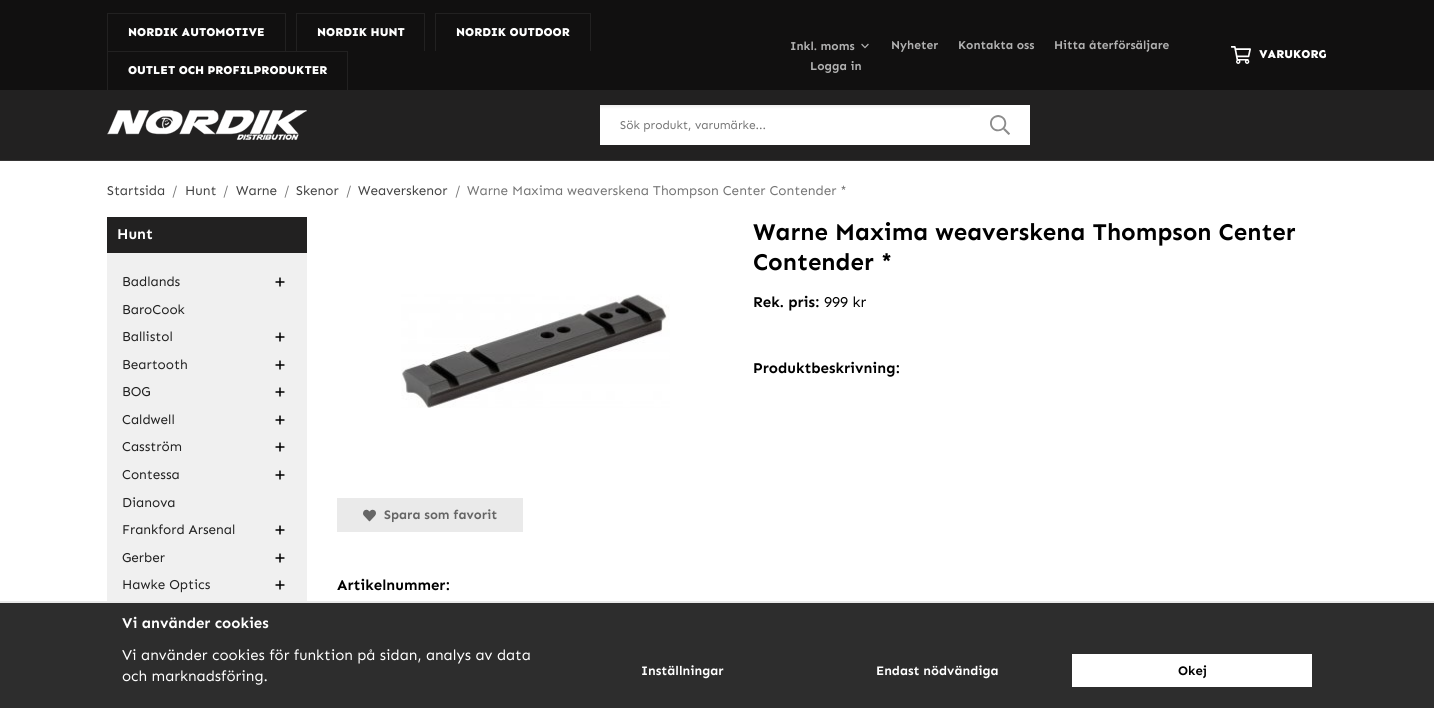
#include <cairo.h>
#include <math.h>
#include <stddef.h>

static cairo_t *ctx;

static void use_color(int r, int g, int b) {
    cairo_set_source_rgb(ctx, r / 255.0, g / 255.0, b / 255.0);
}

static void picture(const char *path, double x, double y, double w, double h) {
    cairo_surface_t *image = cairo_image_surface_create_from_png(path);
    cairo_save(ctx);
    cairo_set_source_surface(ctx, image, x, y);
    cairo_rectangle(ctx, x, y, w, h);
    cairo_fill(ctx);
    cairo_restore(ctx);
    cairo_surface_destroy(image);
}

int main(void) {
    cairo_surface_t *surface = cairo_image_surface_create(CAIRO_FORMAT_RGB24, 1434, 708);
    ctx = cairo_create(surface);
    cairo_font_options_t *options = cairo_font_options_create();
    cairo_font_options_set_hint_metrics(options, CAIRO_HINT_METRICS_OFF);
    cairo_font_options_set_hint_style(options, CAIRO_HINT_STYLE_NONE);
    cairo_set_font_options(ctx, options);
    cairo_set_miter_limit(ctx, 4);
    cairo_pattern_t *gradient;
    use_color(255, 255, 255);
    cairo_paint(ctx);
    use_color(17, 16, 16);
    cairo_rectangle(ctx, 0, 0, 1434, 90);
    cairo_fill(ctx);
    use_color(34, 33, 33);
    cairo_rectangle(ctx, 107, 13, 179, 1);
    cairo_fill(ctx);
    cairo_rectangle(ctx, 285, 13, 1, 38);
    cairo_fill(ctx);
    cairo_rectangle(ctx, 107, 13, 1, 38);
    cairo_fill(ctx);
    cairo_select_font_face(ctx, "Sen ExtraBold", CAIRO_FONT_SLANT_NORMAL, CAIRO_FONT_WEIGHT_NORMAL);
    cairo_set_font_size(ctx, 12);
    use_color(255, 255, 255);
    cairo_move_to(ctx, 128, 36);
    cairo_show_text(ctx, "NORDIK AUTOMOTIVE");
    use_color(34, 33, 33);
    cairo_rectangle(ctx, 296, 13, 129, 1);
    cairo_fill(ctx);
    cairo_rectangle(ctx, 424, 13, 1, 38);
    cairo_fill(ctx);
    cairo_rectangle(ctx, 296, 13, 1, 38);
    cairo_fill(ctx);
    use_color(255, 255, 255);
    cairo_move_to(ctx, 317, 36);
    cairo_show_text(ctx, "NORDIK HUNT");
    use_color(34, 33, 33);
    cairo_rectangle(ctx, 435, 13, 156, 1);
    cairo_fill(ctx);
    cairo_rectangle(ctx, 590, 13, 1, 38);
    cairo_fill(ctx);
    cairo_rectangle(ctx, 435, 13, 1, 38);
    cairo_fill(ctx);
    use_color(255, 255, 255);
    cairo_move_to(ctx, 456, 36);
    cairo_show_text(ctx, "NORDIK OUTDOOR");
    use_color(34, 33, 33);
    cairo_rectangle(ctx, 107, 51, 241, 1);
    cairo_fill(ctx);
    cairo_rectangle(ctx, 347, 51, 1, 39);
    cairo_fill(ctx);
    cairo_rectangle(ctx, 107, 51, 1, 39);
    cairo_fill(ctx);
    use_color(255, 255, 255);
    cairo_move_to(ctx, 128, 74);
    cairo_show_text(ctx, "OUTLET OCH PROFILPRODUKTER");
    cairo_select_font_face(ctx, "Sen", CAIRO_FONT_SLANT_NORMAL, CAIRO_FONT_WEIGHT_BOLD);
    use_color(177, 177, 177);
    cairo_move_to(ctx, 790, 50);
    cairo_show_text(ctx, "Inkl. moms");
    picture("img1.png", 861, 43, 8, 6);
    cairo_move_to(ctx, 891, 49);
    cairo_show_text(ctx, "Nyheter");
    cairo_move_to(ctx, 958, 49);
    cairo_show_text(ctx, "Kontakta oss");
    cairo_move_to(ctx, 1054, 49);
    cairo_show_text(ctx, "Hitta återförsäljare");
    cairo_move_to(ctx, 810, 70);
    cairo_show_text(ctx, "Logga in");
    picture("img2.png", 1231, 46, 20, 18);
    cairo_select_font_face(ctx, "Sen ExtraBold", CAIRO_FONT_SLANT_NORMAL, CAIRO_FONT_WEIGHT_NORMAL);
    use_color(255, 255, 255);
    cairo_move_to(ctx, 1259, 58);
    cairo_show_text(ctx, "VARUKORG");
    use_color(34, 33, 33);
    cairo_rectangle(ctx, 0, 90, 1434, 70);
    cairo_fill(ctx);
    use_color(54, 53, 53);
    cairo_rectangle(ctx, 0, 160, 1434, 1);
    cairo_fill(ctx);
    picture("img3.png", 107, 110, 200, 30);
    use_color(255, 255, 255);
    cairo_rectangle(ctx, 970, 105, 60, 40);
    cairo_fill(ctx);
    gradient = cairo_pattern_create_linear(785, 145, 785, 105);
    cairo_pattern_add_color_stop_rgba(gradient, 0.9, 1, 1, 1, 1);
    cairo_pattern_add_color_stop_rgba(gradient, 1, 0.933, 0.933, 0.933, 1);
    cairo_set_source(ctx, gradient);
    cairo_pattern_destroy(gradient);
    cairo_rectangle(ctx, 600, 105, 370, 40);
    cairo_fill(ctx);
    cairo_select_font_face(ctx, "Sen", CAIRO_FONT_SLANT_NORMAL, CAIRO_FONT_WEIGHT_NORMAL);
    use_color(117, 117, 117);
    cairo_move_to(ctx, 620, 129);
    cairo_show_text(ctx, "Sök produkt, varumärke...");
    picture("img4.png", 990, 115, 20, 20);
    cairo_set_font_size(ctx, 13.5);
    use_color(68, 68, 68);
    cairo_move_to(ctx, 107, 195);
    cairo_show_text(ctx, "Startsida");
    use_color(117, 117, 117);
    cairo_move_to(ctx, 172, 195);
    cairo_show_text(ctx, "/");
    use_color(68, 68, 68);
    cairo_move_to(ctx, 185, 195);
    cairo_show_text(ctx, "Hunt");
    use_color(117, 117, 117);
    cairo_move_to(ctx, 223, 195);
    cairo_show_text(ctx, "/");
    use_color(68, 68, 68);
    cairo_move_to(ctx, 236, 195);
    cairo_show_text(ctx, "Warne");
    use_color(117, 117, 117);
    cairo_move_to(ctx, 284, 195);
    cairo_show_text(ctx, "/");
    use_color(68, 68, 68);
    cairo_move_to(ctx, 296, 195);
    cairo_show_text(ctx, "Skenor");
    use_color(117, 117, 117);
    cairo_move_to(ctx, 346, 195);
    cairo_show_text(ctx, "/");
    use_color(68, 68, 68);
    cairo_move_to(ctx, 358, 195);
    cairo_show_text(ctx, "Weaverskenor");
    use_color(117, 117, 117);
    cairo_move_to(ctx, 455, 195);
    cairo_show_text(ctx, "/");
    cairo_move_to(ctx, 467, 195);
    cairo_show_text(ctx, "Warne Maxima weaverskena Thompson Center Contender *");
    use_color(240, 240, 240);
    cairo_rectangle(ctx, 107, 253, 200, 348);
    cairo_fill(ctx);
    use_color(34, 33, 33);
    cairo_rectangle(ctx, 107, 217, 200, 36);
    cairo_fill(ctx);
    cairo_select_font_face(ctx, "Sen", CAIRO_FONT_SLANT_NORMAL, CAIRO_FONT_WEIGHT_BOLD);
    cairo_set_font_size(ctx, 15);
    use_color(255, 255, 255);
    cairo_move_to(ctx, 117, 239);
    cairo_show_text(ctx, "Hunt");
    cairo_select_font_face(ctx, "Sen", CAIRO_FONT_SLANT_NORMAL, CAIRO_FONT_WEIGHT_NORMAL);
    cairo_set_font_size(ctx, 13.5);
    use_color(34, 34, 34);
    cairo_move_to(ctx, 122, 286);
    cairo_show_text(ctx, "Badlands");
    picture("img5.png", 275, 277, 10, 10);
    cairo_move_to(ctx, 122, 314);
    cairo_show_text(ctx, "BaroCook");
    cairo_move_to(ctx, 122, 341);
    cairo_show_text(ctx, "Ballistol");
    picture("img5.png", 275, 332, 10, 10);
    cairo_move_to(ctx, 122, 369);
    cairo_show_text(ctx, "Beartooth");
    picture("img5.png", 275, 360, 10, 10);
    cairo_move_to(ctx, 122, 396);
    cairo_show_text(ctx, "BOG");
    picture("img5.png", 275, 387, 10, 10);
    cairo_move_to(ctx, 122, 424);
    cairo_show_text(ctx, "Caldwell");
    picture("img5.png", 275, 415, 10, 10);
    cairo_move_to(ctx, 122, 451);
    cairo_show_text(ctx, "Casström");
    picture("img5.png", 275, 442, 10, 10);
    cairo_move_to(ctx, 122, 479);
    cairo_show_text(ctx, "Contessa");
    picture("img5.png", 275, 470, 10, 10);
    cairo_move_to(ctx, 122, 507);
    cairo_show_text(ctx, "Dianova");
    cairo_move_to(ctx, 122, 534);
    cairo_show_text(ctx, "Frankford Arsenal");
    picture("img5.png", 275, 525, 10, 10);
    cairo_move_to(ctx, 122, 562);
    cairo_show_text(ctx, "Gerber");
    picture("img5.png", 275, 553, 10, 10);
    cairo_move_to(ctx, 122, 589);
    cairo_show_text(ctx, "Hawke Optics");
    picture("img5.png", 275, 580, 10, 10);
    picture("img6.png", 401, 294, 269, 114);
    cairo_select_font_face(ctx, "Sen", CAIRO_FONT_SLANT_NORMAL, CAIRO_FONT_WEIGHT_BOLD);
    cairo_set_font_size(ctx, 24);
    use_color(0, 0, 0);
    cairo_move_to(ctx, 753, 240);
    cairo_show_text(ctx, "Warne Maxima weaverskena Thompson Center");
    cairo_move_to(ctx, 753, 270);
    cairo_show_text(ctx, "Contender *");
    cairo_set_font_size(ctx, 15);
    cairo_move_to(ctx, 753, 307);
    cairo_show_text(ctx, "Rek. pris:");
    cairo_select_font_face(ctx, "Sen", CAIRO_FONT_SLANT_NORMAL, CAIRO_FONT_WEIGHT_NORMAL);
    cairo_move_to(ctx, 824, 307);
    cairo_show_text(ctx, "999 kr");
    cairo_select_font_face(ctx, "Sen", CAIRO_FONT_SLANT_NORMAL, CAIRO_FONT_WEIGHT_BOLD);
    cairo_move_to(ctx, 753, 373);
    cairo_show_text(ctx, "Produktbeskrivning:");
    use_color(234, 234, 234);
    cairo_rectangle(ctx, 337, 498, 186, 34);
    cairo_fill(ctx);
    picture("img7.png", 363, 509, 13, 13);
    cairo_set_font_size(ctx, 13);
    use_color(102, 102, 102);
    cairo_move_to(ctx, 384, 519);
    cairo_show_text(ctx, "Spara som favorit");
    cairo_set_font_size(ctx, 15);
    use_color(0, 0, 0);
    cairo_move_to(ctx, 337, 590);
    cairo_show_text(ctx, "Artikelnummer:");
    use_color(45, 45, 45);
    cairo_rectangle(ctx, 0, 603, 1434, 105);
    cairo_fill(ctx);
    use_color(233, 233, 233);
    cairo_rectangle(ctx, 0, 601, 1434, 2);
    cairo_fill(ctx);
    use_color(255, 255, 255);
    cairo_move_to(ctx, 122, 628);
    cairo_show_text(ctx, "Vi använder cookies");
    cairo_select_font_face(ctx, "Sen", CAIRO_FONT_SLANT_NORMAL, CAIRO_FONT_WEIGHT_NORMAL);
    cairo_move_to(ctx, 122, 660);
    cairo_show_text(ctx, "Vi använder cookies för funktion på sidan, analys av data");
    cairo_move_to(ctx, 122, 681);
    cairo_show_text(ctx, "och marknadsföring.");
    cairo_select_font_face(ctx, "Sen", CAIRO_FONT_SLANT_NORMAL, CAIRO_FONT_WEIGHT_BOLD);
    cairo_set_font_size(ctx, 13);
    cairo_move_to(ctx, 641, 675);
    cairo_show_text(ctx, "Inställningar");
    cairo_move_to(ctx, 876, 675);
    cairo_show_text(ctx, "Endast nödvändiga");
    cairo_rectangle(ctx, 1072, 654, 240, 33);
    cairo_fill(ctx);
    use_color(0, 0, 0);
    cairo_move_to(ctx, 1178, 675);
    cairo_show_text(ctx, "Okej");
    cairo_surface_write_to_png(surface, "result.png");
    cairo_font_options_destroy(options);
    cairo_destroy(ctx);
    cairo_surface_destroy(surface);
    return 0;
}
